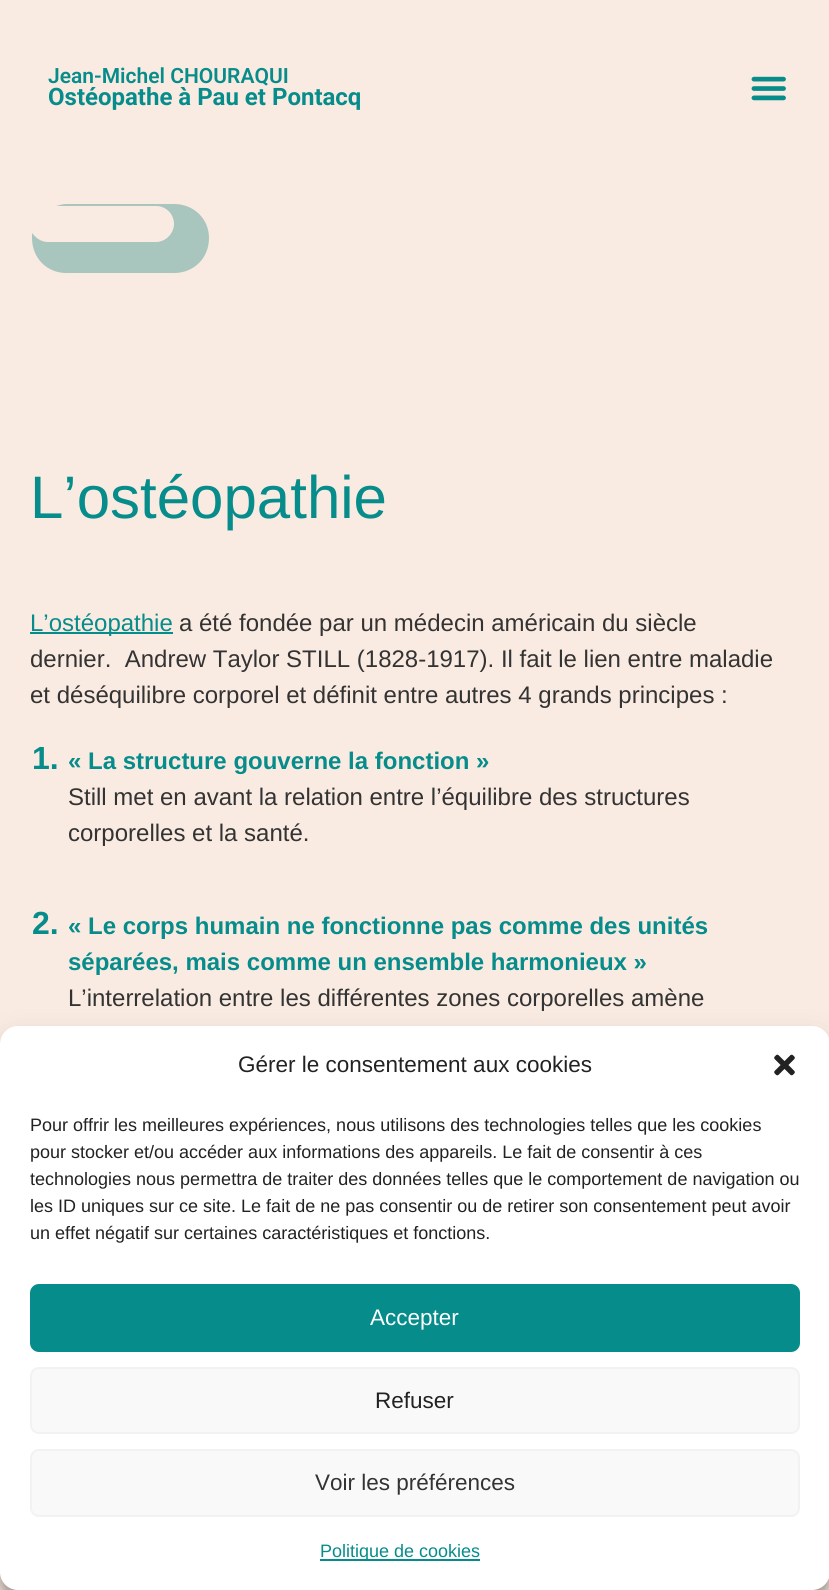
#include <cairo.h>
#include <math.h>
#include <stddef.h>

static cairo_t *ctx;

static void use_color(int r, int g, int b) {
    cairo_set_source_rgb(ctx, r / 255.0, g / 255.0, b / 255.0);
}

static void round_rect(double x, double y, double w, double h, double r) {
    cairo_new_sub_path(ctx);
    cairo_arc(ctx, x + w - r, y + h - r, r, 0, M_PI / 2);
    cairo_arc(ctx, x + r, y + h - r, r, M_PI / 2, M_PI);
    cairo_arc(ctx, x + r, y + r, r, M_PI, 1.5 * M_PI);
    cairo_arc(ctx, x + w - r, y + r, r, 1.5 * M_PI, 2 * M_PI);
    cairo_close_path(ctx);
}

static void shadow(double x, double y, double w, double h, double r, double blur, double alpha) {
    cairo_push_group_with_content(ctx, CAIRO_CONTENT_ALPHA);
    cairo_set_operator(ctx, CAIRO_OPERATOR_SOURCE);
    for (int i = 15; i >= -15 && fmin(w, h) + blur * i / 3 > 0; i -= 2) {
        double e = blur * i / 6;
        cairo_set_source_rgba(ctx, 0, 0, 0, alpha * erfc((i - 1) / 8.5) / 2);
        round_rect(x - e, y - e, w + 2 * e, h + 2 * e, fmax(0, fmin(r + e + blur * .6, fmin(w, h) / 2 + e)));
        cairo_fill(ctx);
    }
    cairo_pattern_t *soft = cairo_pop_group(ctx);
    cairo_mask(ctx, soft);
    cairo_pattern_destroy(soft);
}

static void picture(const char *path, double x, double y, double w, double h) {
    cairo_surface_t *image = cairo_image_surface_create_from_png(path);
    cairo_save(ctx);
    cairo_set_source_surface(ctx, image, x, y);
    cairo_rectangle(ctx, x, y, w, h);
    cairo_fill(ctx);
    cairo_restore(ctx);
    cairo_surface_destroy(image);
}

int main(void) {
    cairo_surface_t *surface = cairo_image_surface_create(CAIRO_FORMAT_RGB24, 829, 1590);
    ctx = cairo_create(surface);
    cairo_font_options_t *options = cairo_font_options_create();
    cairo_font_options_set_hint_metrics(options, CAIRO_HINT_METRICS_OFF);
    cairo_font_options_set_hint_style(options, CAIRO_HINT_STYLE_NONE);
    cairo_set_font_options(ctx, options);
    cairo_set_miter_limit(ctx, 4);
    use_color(250, 235, 226);
    cairo_paint(ctx);
    cairo_select_font_face(ctx, "Roboto SemiBold", CAIRO_FONT_SLANT_NORMAL, CAIRO_FONT_WEIGHT_NORMAL);
    cairo_set_font_size(ctx, 21);
    use_color(6, 140, 139);
    cairo_move_to(ctx, 48, 83);
    cairo_show_text(ctx, "Jean-Michel CHOURAQUI");
    cairo_select_font_face(ctx, "Roboto", CAIRO_FONT_SLANT_NORMAL, CAIRO_FONT_WEIGHT_BOLD);
    cairo_set_font_size(ctx, 24);
    cairo_move_to(ctx, 48, 105);
    cairo_show_text(ctx, "Ostéopathe à Pau et Pontacq");
    picture("img1.png", 751, 76, 35, 25);
    use_color(168, 197, 190);
    cairo_new_path(ctx);
    cairo_move_to(ctx, 66, 204);
    cairo_curve_to(ctx, 63, 204, 60, 205, 56, 206);
    cairo_line_to(ctx, 156, 206);
    cairo_curve_to(ctx, 166, 206, 174, 214, 174, 224);
    cairo_curve_to(ctx, 174, 233, 166, 242, 156, 242);
    cairo_line_to(ctx, 48, 242);
    cairo_curve_to(ctx, 41, 242, 36, 238, 32, 233);
    cairo_line_to(ctx, 32, 238);
    cairo_curve_to(ctx, 32, 258, 47, 273, 66, 273);
    cairo_line_to(ctx, 174, 273);
    cairo_curve_to(ctx, 194, 273, 209, 258, 209, 238);
    cairo_curve_to(ctx, 209, 219, 194, 204, 174, 204);
    cairo_close_path(ctx);
    cairo_fill(ctx);
    cairo_select_font_face(ctx, "Liberation Sans", CAIRO_FONT_SLANT_NORMAL, CAIRO_FONT_WEIGHT_NORMAL);
    cairo_set_font_size(ctx, 60);
    use_color(6, 140, 139);
    cairo_move_to(ctx, 30, 518);
    cairo_show_text(ctx, "L’ostéopathie");
    cairo_rectangle(ctx, 30, 632, 143, 2);
    cairo_fill(ctx);
    cairo_set_font_size(ctx, 24);
    cairo_move_to(ctx, 30, 631);
    cairo_show_text(ctx, "L’ostéopathie");
    use_color(51, 51, 51);
    cairo_move_to(ctx, 179, 631);
    cairo_show_text(ctx, "a été fondée par un médecin américain du siècle");
    cairo_move_to(ctx, 30, 667);
    cairo_show_text(ctx, "dernier.  Andrew Taylor STILL (1828-1917). Il fait le lien entre maladie");
    cairo_move_to(ctx, 30, 703);
    cairo_show_text(ctx, "et déséquilibre corporel et définit entre autres 4 grands principes :");
    cairo_select_font_face(ctx, "Liberation Sans", CAIRO_FONT_SLANT_NORMAL, CAIRO_FONT_WEIGHT_BOLD);
    cairo_set_font_size(ctx, 32);
    use_color(6, 140, 139);
    cairo_move_to(ctx, 32, 769);
    cairo_show_text(ctx, "1.");
    cairo_set_font_size(ctx, 24);
    cairo_move_to(ctx, 68, 769);
    cairo_show_text(ctx, "« La structure gouverne la fonction »");
    cairo_select_font_face(ctx, "Liberation Sans", CAIRO_FONT_SLANT_NORMAL, CAIRO_FONT_WEIGHT_NORMAL);
    use_color(51, 51, 51);
    cairo_move_to(ctx, 68, 805);
    cairo_show_text(ctx, "Still met en avant la relation entre l’équilibre des structures");
    cairo_move_to(ctx, 68, 841);
    cairo_show_text(ctx, "corporelles et la santé.");
    cairo_select_font_face(ctx, "Liberation Sans", CAIRO_FONT_SLANT_NORMAL, CAIRO_FONT_WEIGHT_BOLD);
    cairo_set_font_size(ctx, 32);
    use_color(6, 140, 139);
    cairo_move_to(ctx, 32, 934);
    cairo_show_text(ctx, "2.");
    cairo_set_font_size(ctx, 24);
    cairo_move_to(ctx, 68, 934);
    cairo_show_text(ctx, "« Le corps humain ne fonctionne pas comme des unités");
    cairo_move_to(ctx, 68, 970);
    cairo_show_text(ctx, "séparées, mais comme un ensemble harmonieux »");
    cairo_select_font_face(ctx, "Liberation Sans", CAIRO_FONT_SLANT_NORMAL, CAIRO_FONT_WEIGHT_NORMAL);
    use_color(51, 51, 51);
    cairo_move_to(ctx, 68, 1006);
    cairo_show_text(ctx, "L’interrelation entre les différentes zones corporelles amène");
    use_color(0, 0, 0);
    shadow(0, 1035, 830, 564, 18, 4.5, 0.23);
    shadow(0, 1041, 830, 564, 18, 15, 0.19);
    use_color(255, 255, 255);
    round_rect(0, 1026, 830, 564, 18);
    cairo_fill(ctx);
    cairo_set_font_size(ctx, 22.5);
    use_color(34, 34, 34);
    cairo_move_to(ctx, 238, 1072);
    cairo_show_text(ctx, "Gérer le consentement aux cookies");
    picture("img2.png", 774, 1054, 21, 22);
    cairo_set_font_size(ctx, 18);
    cairo_move_to(ctx, 30, 1131);
    cairo_show_text(ctx, "Pour offrir les meilleures expériences, nous utilisons des technologies telles que les cookies");
    cairo_move_to(ctx, 30, 1158);
    cairo_show_text(ctx, "pour stocker et/ou accéder aux informations des appareils. Le fait de consentir à ces");
    cairo_move_to(ctx, 30, 1185);
    cairo_show_text(ctx, "technologies nous permettra de traiter des données telles que le comportement de navigation ou");
    cairo_move_to(ctx, 30, 1212);
    cairo_show_text(ctx, "les ID uniques sur ce site. Le fait de ne pas consentir ou de retirer son consentement peut avoir");
    cairo_move_to(ctx, 30, 1239);
    cairo_show_text(ctx, "un effet négatif sur certaines caractéristiques et fonctions.");
    use_color(6, 140, 139);
    round_rect(31, 1285, 768, 66, 8);
    cairo_fill_preserve(ctx);
    cairo_stroke(ctx);
    cairo_set_font_size(ctx, 22.5);
    use_color(255, 255, 255);
    cairo_move_to(ctx, 370, 1325);
    cairo_show_text(ctx, "Accepter");
    use_color(249, 249, 249);
    round_rect(31, 1368, 768, 65, 8);
    cairo_fill_preserve(ctx);
    use_color(242, 242, 242);
    cairo_stroke(ctx);
    use_color(34, 34, 34);
    cairo_move_to(ctx, 375, 1408);
    cairo_show_text(ctx, "Refuser");
    use_color(249, 249, 249);
    round_rect(31, 1450, 768, 66, 8);
    cairo_fill_preserve(ctx);
    use_color(242, 242, 242);
    cairo_stroke(ctx);
    use_color(51, 51, 51);
    cairo_move_to(ctx, 315, 1490);
    cairo_show_text(ctx, "Voir les préférences");
    use_color(6, 140, 139);
    cairo_rectangle(ctx, 320, 1559, 160, 2);
    cairo_fill(ctx);
    cairo_set_font_size(ctx, 18);
    cairo_move_to(ctx, 320, 1557);
    cairo_show_text(ctx, "Politique de cookies");
    cairo_surface_write_to_png(surface, "result.png");
    cairo_font_options_destroy(options);
    cairo_destroy(ctx);
    cairo_surface_destroy(surface);
    return 0;
}
